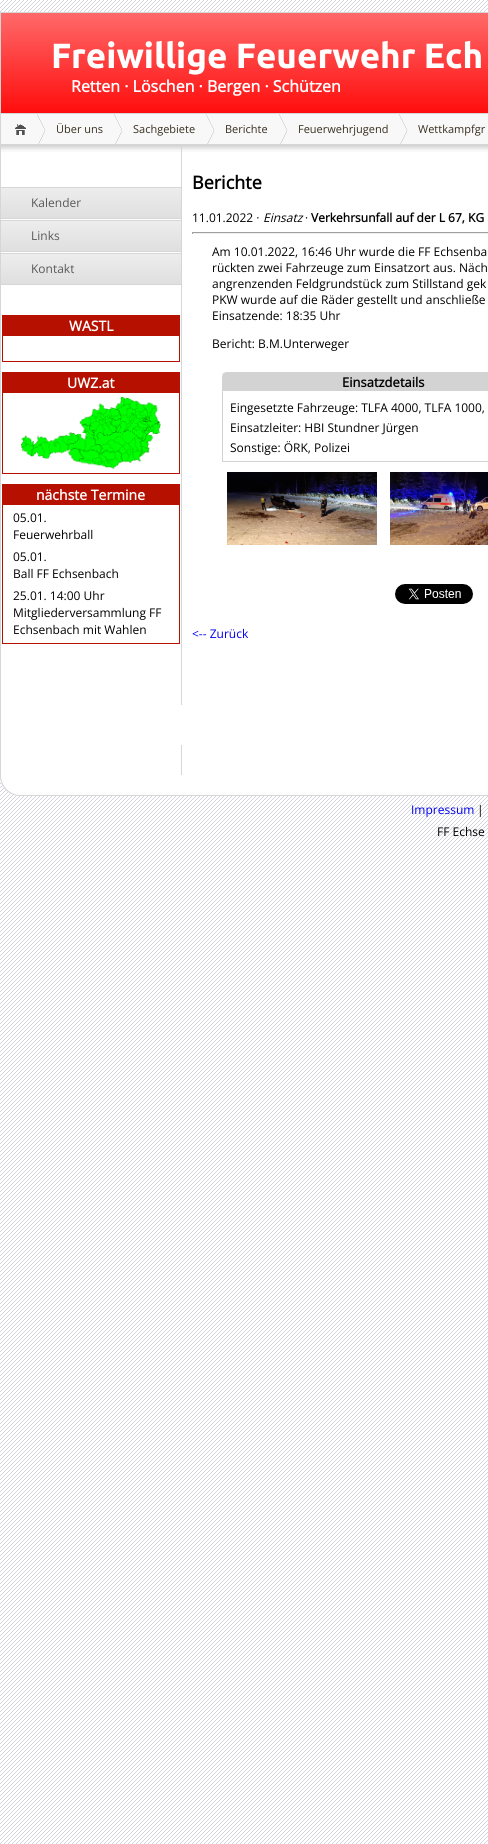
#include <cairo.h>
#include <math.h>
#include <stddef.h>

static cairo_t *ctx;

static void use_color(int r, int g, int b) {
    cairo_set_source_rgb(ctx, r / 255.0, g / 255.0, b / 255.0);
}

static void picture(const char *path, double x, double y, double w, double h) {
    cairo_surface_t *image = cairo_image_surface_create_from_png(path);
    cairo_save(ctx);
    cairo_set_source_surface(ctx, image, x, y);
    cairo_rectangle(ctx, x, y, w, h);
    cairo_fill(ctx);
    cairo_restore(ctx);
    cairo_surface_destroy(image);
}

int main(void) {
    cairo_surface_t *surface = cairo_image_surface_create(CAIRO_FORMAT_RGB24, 488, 1844);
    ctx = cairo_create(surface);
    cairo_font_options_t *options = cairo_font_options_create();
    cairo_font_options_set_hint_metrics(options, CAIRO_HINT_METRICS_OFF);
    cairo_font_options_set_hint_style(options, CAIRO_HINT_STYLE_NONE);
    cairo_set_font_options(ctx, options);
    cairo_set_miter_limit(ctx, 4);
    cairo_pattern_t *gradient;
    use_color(255, 255, 255);
    cairo_paint(ctx);
    picture("img1.png", 0, 0, 488, 1844);
    gradient = cairo_pattern_create_linear(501, 13, 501, 113);
    cairo_pattern_add_color_stop_rgba(gradient, 0, 1, 0.412, 0.412, 1);
    cairo_pattern_add_color_stop_rgba(gradient, 1, 1, 0.051, 0.051, 1);
    cairo_set_source(ctx, gradient);
    cairo_pattern_destroy(gradient);
    cairo_rectangle(ctx, 1, 13, 487, 100);
    cairo_fill(ctx);
    use_color(214, 214, 214);
    cairo_rectangle(ctx, 0, 12, 488, 1);
    cairo_fill(ctx);
    cairo_rectangle(ctx, 0, 12, 1, 101);
    cairo_fill(ctx);
    cairo_select_font_face(ctx, "Ubuntu", CAIRO_FONT_SLANT_NORMAL, CAIRO_FONT_WEIGHT_BOLD);
    cairo_set_font_size(ctx, 35);
    use_color(255, 255, 255);
    cairo_move_to(ctx, 51, 68);
    cairo_show_text(ctx, "Freiwillige Feuerwehr Ech");
    cairo_select_font_face(ctx, "Open Sans", CAIRO_FONT_SLANT_NORMAL, CAIRO_FONT_WEIGHT_BOLD);
    cairo_set_font_size(ctx, 16);
    cairo_move_to(ctx, 71, 92);
    cairo_show_text(ctx, "Retten · Löschen · Bergen · Schützen");
    use_color(248, 248, 248);
    cairo_rectangle(ctx, 0.5, 113.5, 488, 31);
    cairo_fill_preserve(ctx);
    use_color(214, 214, 214);
    cairo_set_line_width(ctx, 1);
    cairo_stroke(ctx);
    picture("img2.png", 15, 124, 11, 11);
    picture("img3.png", 37, 114, 9, 30);
    cairo_select_font_face(ctx, "Open Sans", CAIRO_FONT_SLANT_NORMAL, CAIRO_FONT_WEIGHT_NORMAL);
    cairo_set_font_size(ctx, 11);
    use_color(56, 46, 31);
    cairo_move_to(ctx, 56, 133);
    cairo_show_text(ctx, "Über uns");
    picture("img3.png", 114, 114, 9, 30);
    cairo_move_to(ctx, 133, 133);
    cairo_show_text(ctx, "Sachgebiete");
    picture("img4.png", 206, 114, 9, 30);
    cairo_move_to(ctx, 225, 133);
    cairo_show_text(ctx, "Berichte");
    picture("img3.png", 279, 114, 9, 30);
    cairo_move_to(ctx, 298, 133);
    cairo_show_text(ctx, "Feuerwehrjugend");
    picture("img4.png", 399, 114, 9, 30);
    cairo_move_to(ctx, 418, 133);
    cairo_show_text(ctx, "Wettkampfgr");
    use_color(255, 255, 255);
    cairo_rectangle(ctx, 1, 152, 487, 593);
    cairo_fill(ctx);
    gradient = cairo_pattern_create_linear(91, 188, 91, 218);
    cairo_pattern_add_color_stop_rgba(gradient, 0, 0.929, 0.929, 0.929, 1);
    cairo_pattern_add_color_stop_rgba(gradient, 1, 0.875, 0.875, 0.875, 1);
    cairo_set_source(ctx, gradient);
    cairo_pattern_destroy(gradient);
    cairo_rectangle(ctx, 1, 188, 180, 30);
    cairo_fill(ctx);
    use_color(214, 214, 214);
    cairo_rectangle(ctx, 1, 187, 180, 1);
    cairo_fill(ctx);
    cairo_rectangle(ctx, 1, 218, 180, 1);
    cairo_fill(ctx);
    cairo_set_font_size(ctx, 12);
    use_color(89, 89, 89);
    cairo_move_to(ctx, 31, 207);
    cairo_show_text(ctx, "Kalender");
    gradient = cairo_pattern_create_linear(91, 221, 91, 251);
    cairo_pattern_add_color_stop_rgba(gradient, 0, 0.929, 0.929, 0.929, 1);
    cairo_pattern_add_color_stop_rgba(gradient, 1, 0.875, 0.875, 0.875, 1);
    cairo_set_source(ctx, gradient);
    cairo_pattern_destroy(gradient);
    cairo_rectangle(ctx, 1, 221, 180, 30);
    cairo_fill(ctx);
    use_color(214, 214, 214);
    cairo_rectangle(ctx, 1, 220, 180, 1);
    cairo_fill(ctx);
    cairo_rectangle(ctx, 1, 251, 180, 1);
    cairo_fill(ctx);
    use_color(89, 89, 89);
    cairo_move_to(ctx, 31, 240);
    cairo_show_text(ctx, "Links");
    gradient = cairo_pattern_create_linear(91, 254, 91, 284);
    cairo_pattern_add_color_stop_rgba(gradient, 0, 0.929, 0.929, 0.929, 1);
    cairo_pattern_add_color_stop_rgba(gradient, 1, 0.875, 0.875, 0.875, 1);
    cairo_set_source(ctx, gradient);
    cairo_pattern_destroy(gradient);
    cairo_rectangle(ctx, 1, 254, 180, 30);
    cairo_fill(ctx);
    use_color(214, 214, 214);
    cairo_rectangle(ctx, 1, 253, 180, 1);
    cairo_fill(ctx);
    cairo_rectangle(ctx, 1, 284, 180, 1);
    cairo_fill(ctx);
    use_color(89, 89, 89);
    cairo_move_to(ctx, 31, 273);
    cairo_show_text(ctx, "Kontakt");
    cairo_rectangle(ctx, 2.5, 315.5, 177, 46);
    use_color(181, 16, 0);
    cairo_stroke(ctx);
    cairo_rectangle(ctx, 3, 316, 176, 20);
    cairo_fill(ctx);
    cairo_select_font_face(ctx, "Open Sans", CAIRO_FONT_SLANT_NORMAL, CAIRO_FONT_WEIGHT_BOLD);
    cairo_set_font_size(ctx, 14);
    use_color(255, 255, 255);
    cairo_move_to(ctx, 69, 331);
    cairo_show_text(ctx, "WASTL");
    cairo_rectangle(ctx, 2.5, 372.5, 177, 101);
    use_color(181, 16, 0);
    cairo_stroke(ctx);
    cairo_rectangle(ctx, 3, 373, 176, 20);
    cairo_fill(ctx);
    use_color(255, 255, 255);
    cairo_move_to(ctx, 67, 388);
    cairo_show_text(ctx, "UWZ.at");
    picture("img5.png", 21, 397, 140, 72);
    cairo_rectangle(ctx, 2.5, 484.5, 177, 159);
    use_color(181, 16, 0);
    cairo_stroke(ctx);
    cairo_rectangle(ctx, 3, 485, 176, 20);
    cairo_fill(ctx);
    use_color(255, 255, 255);
    cairo_move_to(ctx, 36, 500);
    cairo_show_text(ctx, "nächste Termine");
    cairo_select_font_face(ctx, "Open Sans", CAIRO_FONT_SLANT_NORMAL, CAIRO_FONT_WEIGHT_NORMAL);
    cairo_set_font_size(ctx, 12);
    use_color(0, 0, 0);
    cairo_move_to(ctx, 13, 522);
    cairo_show_text(ctx, "05.01.");
    cairo_move_to(ctx, 13, 539);
    cairo_show_text(ctx, "Feuerwehrball");
    cairo_move_to(ctx, 13, 561);
    cairo_show_text(ctx, "05.01.");
    cairo_move_to(ctx, 13, 578);
    cairo_show_text(ctx, "Ball FF Echsenbach");
    cairo_move_to(ctx, 13, 600);
    cairo_show_text(ctx, "25.01. 14:00 Uhr");
    cairo_move_to(ctx, 13, 617);
    cairo_show_text(ctx, "Mitgliederversammlung FF");
    cairo_move_to(ctx, 13, 634);
    cairo_show_text(ctx, "Echsenbach mit Wahlen");
    picture("img6.png", 1, 145, 487, 7);
    use_color(214, 214, 214);
    cairo_rectangle(ctx, 0, 145, 1, 600);
    cairo_fill(ctx);
    cairo_rectangle(ctx, 181, 145, 1, 560);
    cairo_fill(ctx);
    cairo_select_font_face(ctx, "Open Sans", CAIRO_FONT_SLANT_NORMAL, CAIRO_FONT_WEIGHT_BOLD);
    cairo_set_font_size(ctx, 18);
    use_color(0, 0, 0);
    cairo_move_to(ctx, 192, 189);
    cairo_show_text(ctx, "Berichte");
    cairo_select_font_face(ctx, "Open Sans", CAIRO_FONT_SLANT_NORMAL, CAIRO_FONT_WEIGHT_NORMAL);
    cairo_set_font_size(ctx, 12);
    cairo_move_to(ctx, 192, 222);
    cairo_show_text(ctx, "11.01.2022 ·");
    cairo_select_font_face(ctx, "Open Sans", CAIRO_FONT_SLANT_ITALIC, CAIRO_FONT_WEIGHT_NORMAL);
    cairo_move_to(ctx, 263, 222);
    cairo_show_text(ctx, "Einsatz");
    cairo_select_font_face(ctx, "Open Sans", CAIRO_FONT_SLANT_NORMAL, CAIRO_FONT_WEIGHT_NORMAL);
    cairo_move_to(ctx, 305, 222);
    cairo_show_text(ctx, "·");
    cairo_select_font_face(ctx, "Open Sans", CAIRO_FONT_SLANT_NORMAL, CAIRO_FONT_WEIGHT_BOLD);
    cairo_move_to(ctx, 311, 222);
    cairo_show_text(ctx, "Verkehrsunfall auf der L 67, KG");
    use_color(159, 159, 159);
    cairo_rectangle(ctx, 192, 232, 296, 1);
    cairo_fill(ctx);
    use_color(238, 238, 238);
    cairo_rectangle(ctx, 192, 233, 296, 1);
    cairo_fill(ctx);
    use_color(159, 159, 159);
    cairo_rectangle(ctx, 192, 232, 1, 2);
    cairo_fill(ctx);
    cairo_select_font_face(ctx, "Open Sans", CAIRO_FONT_SLANT_NORMAL, CAIRO_FONT_WEIGHT_NORMAL);
    use_color(0, 0, 0);
    cairo_move_to(ctx, 212, 256);
    cairo_show_text(ctx, "Am 10.01.2022, 16:46 Uhr wurde die FF Echsenba");
    cairo_move_to(ctx, 212, 272);
    cairo_show_text(ctx, "rückten zwei Fahrzeuge zum Einsatzort aus. Näch");
    cairo_move_to(ctx, 212, 288);
    cairo_show_text(ctx, "angrenzenden Feldgrundstück zum Stillstand gek");
    cairo_move_to(ctx, 212, 304);
    cairo_show_text(ctx, "PKW wurde auf die Räder gestellt und anschließe");
    cairo_move_to(ctx, 212, 320);
    cairo_show_text(ctx, "Einsatzende: 18:35 Uhr");
    cairo_move_to(ctx, 212, 348);
    cairo_show_text(ctx, "Bericht: B.M.Unterweger");
    cairo_new_path(ctx);
    cairo_move_to(ctx, 227, 372.5);
    cairo_line_to(ctx, 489, 372.5);
    cairo_curve_to(ctx, 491.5, 372.5, 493.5, 374.5, 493.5, 377);
    cairo_line_to(ctx, 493.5, 461.5);
    cairo_line_to(ctx, 222.5, 461.5);
    cairo_line_to(ctx, 222.5, 377);
    cairo_curve_to(ctx, 222.5, 374.5, 224.5, 372.5, 227, 372.5);
    cairo_close_path(ctx);
    use_color(211, 211, 211);
    cairo_stroke(ctx);
    cairo_rectangle(ctx, 223, 373, 265, 18);
    cairo_fill(ctx);
    cairo_select_font_face(ctx, "Open Sans", CAIRO_FONT_SLANT_NORMAL, CAIRO_FONT_WEIGHT_BOLD);
    cairo_set_font_size(ctx, 13);
    use_color(0, 0, 0);
    cairo_move_to(ctx, 342, 387);
    cairo_show_text(ctx, "Einsatzdetails");
    cairo_select_font_face(ctx, "Open Sans", CAIRO_FONT_SLANT_NORMAL, CAIRO_FONT_WEIGHT_NORMAL);
    cairo_set_font_size(ctx, 12);
    cairo_move_to(ctx, 230, 412);
    cairo_show_text(ctx, "Eingesetzte Fahrzeuge: TLFA 4000, TLFA 1000,");
    cairo_move_to(ctx, 230, 432);
    cairo_show_text(ctx, "Einsatzleiter: HBI Stundner Jürgen");
    cairo_move_to(ctx, 230, 452);
    cairo_show_text(ctx, "Sonstige: ÖRK, Polizei");
    picture("img7.png", 227, 472, 150, 73);
    picture("img8.png", 390, 472, 98, 73);
    picture("img9.png", 395, 584, 78, 20);
    use_color(0, 0, 238);
    cairo_move_to(ctx, 192, 638);
    cairo_show_text(ctx, "<-- Zurück");
    use_color(255, 255, 255);
    cairo_new_path(ctx);
    cairo_move_to(ctx, 0, 745);
    cairo_line_to(ctx, 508, 745);
    cairo_line_to(ctx, 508, 776);
    cairo_curve_to(ctx, 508, 787, 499, 796, 488, 796);
    cairo_line_to(ctx, 20, 796);
    cairo_curve_to(ctx, 9, 796, 0, 787, 0, 776);
    cairo_close_path(ctx);
    cairo_fill(ctx);
    use_color(214, 214, 214);
    cairo_set_fill_rule(ctx, CAIRO_FILL_RULE_EVEN_ODD);
    cairo_new_path(ctx);
    cairo_move_to(ctx, 0, 745);
    cairo_line_to(ctx, 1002, 745);
    cairo_line_to(ctx, 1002, 776);
    cairo_curve_to(ctx, 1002, 787, 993, 796, 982, 796);
    cairo_line_to(ctx, 20, 796);
    cairo_curve_to(ctx, 9, 796, 0, 787, 0, 776);
    cairo_close_path(ctx);
    cairo_move_to(ctx, 1, 745);
    cairo_line_to(ctx, 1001, 745);
    cairo_line_to(ctx, 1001, 776);
    cairo_curve_to(ctx, 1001, 786, 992, 795, 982, 795);
    cairo_line_to(ctx, 20, 795);
    cairo_curve_to(ctx, 10, 795, 1, 786, 1, 776);
    cairo_close_path(ctx);
    cairo_fill(ctx);
    cairo_rectangle(ctx, 181, 745, 1, 30);
    cairo_fill(ctx);
    use_color(0, 0, 238);
    cairo_move_to(ctx, 411, 814);
    cairo_show_text(ctx, "Impressum");
    use_color(0, 0, 0);
    cairo_move_to(ctx, 477, 814);
    cairo_show_text(ctx, "|");
    cairo_move_to(ctx, 437, 836);
    cairo_show_text(ctx, "FF Echse");
    cairo_surface_write_to_png(surface, "result.png");
    cairo_font_options_destroy(options);
    cairo_destroy(ctx);
    cairo_surface_destroy(surface);
    return 0;
}
